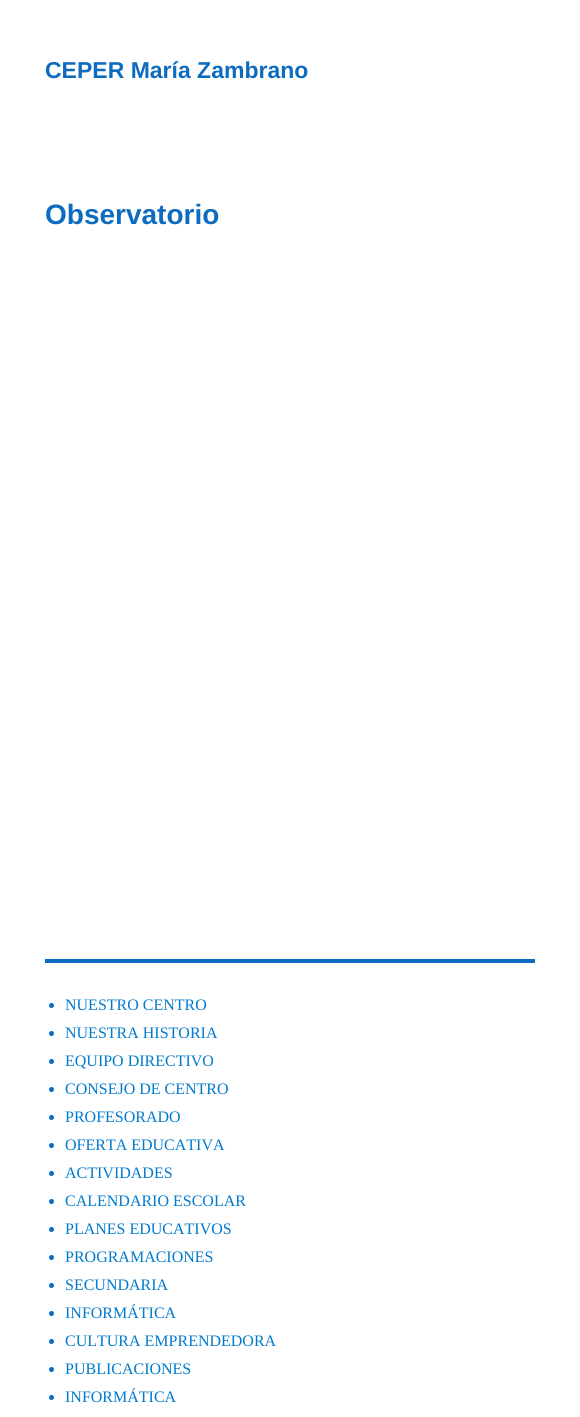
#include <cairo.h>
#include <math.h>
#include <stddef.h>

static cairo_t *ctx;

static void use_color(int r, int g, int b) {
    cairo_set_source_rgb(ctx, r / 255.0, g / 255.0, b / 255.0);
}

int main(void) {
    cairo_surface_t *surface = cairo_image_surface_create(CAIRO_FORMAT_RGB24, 580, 1417);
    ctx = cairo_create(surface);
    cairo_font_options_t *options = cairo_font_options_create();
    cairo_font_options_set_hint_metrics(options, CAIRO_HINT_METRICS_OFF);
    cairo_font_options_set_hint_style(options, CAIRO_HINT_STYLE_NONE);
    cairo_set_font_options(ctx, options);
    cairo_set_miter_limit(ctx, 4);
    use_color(255, 255, 255);
    cairo_paint(ctx);
    cairo_select_font_face(ctx, "Liberation Sans", CAIRO_FONT_SLANT_NORMAL, CAIRO_FONT_WEIGHT_BOLD);
    cairo_set_font_size(ctx, 23);
    use_color(13, 108, 191);
    cairo_move_to(ctx, 45, 78);
    cairo_show_text(ctx, "CEPER María Zambrano");
    cairo_set_font_size(ctx, 28);
    cairo_move_to(ctx, 45, 224);
    cairo_show_text(ctx, "Observatorio");
    cairo_rectangle(ctx, 45, 959, 490, 4);
    cairo_fill(ctx);
    cairo_arc(ctx, 51.5, 1005.5, 2.5, 0, 2 * M_PI);
    cairo_fill(ctx);
    cairo_select_font_face(ctx, "Liberation Serif", CAIRO_FONT_SLANT_NORMAL, CAIRO_FONT_WEIGHT_NORMAL);
    cairo_set_font_size(ctx, 16);
    use_color(0, 122, 204);
    cairo_move_to(ctx, 65, 1010);
    cairo_show_text(ctx, "NUESTRO CENTRO");
    use_color(13, 108, 191);
    cairo_new_path(ctx);
    cairo_arc(ctx, 51.5, 1033.5, 2.5, 0, 2 * M_PI);
    cairo_fill(ctx);
    use_color(0, 122, 204);
    cairo_move_to(ctx, 65, 1038);
    cairo_show_text(ctx, "NUESTRA HISTORIA");
    use_color(13, 108, 191);
    cairo_new_path(ctx);
    cairo_arc(ctx, 51.5, 1061.5, 2.5, 0, 2 * M_PI);
    cairo_fill(ctx);
    use_color(0, 122, 204);
    cairo_move_to(ctx, 65, 1066);
    cairo_show_text(ctx, "EQUIPO DIRECTIVO");
    use_color(13, 108, 191);
    cairo_new_path(ctx);
    cairo_arc(ctx, 51.5, 1089.5, 2.5, 0, 2 * M_PI);
    cairo_fill(ctx);
    use_color(0, 122, 204);
    cairo_move_to(ctx, 65, 1094);
    cairo_show_text(ctx, "CONSEJO DE CENTRO");
    use_color(13, 108, 191);
    cairo_new_path(ctx);
    cairo_arc(ctx, 51.5, 1117.5, 2.5, 0, 2 * M_PI);
    cairo_fill(ctx);
    use_color(0, 122, 204);
    cairo_move_to(ctx, 65, 1122);
    cairo_show_text(ctx, "PROFESORADO");
    use_color(13, 108, 191);
    cairo_new_path(ctx);
    cairo_arc(ctx, 51.5, 1145.5, 2.5, 0, 2 * M_PI);
    cairo_fill(ctx);
    use_color(0, 122, 204);
    cairo_move_to(ctx, 65, 1150);
    cairo_show_text(ctx, "OFERTA EDUCATIVA");
    use_color(13, 108, 191);
    cairo_new_path(ctx);
    cairo_arc(ctx, 51.5, 1173.5, 2.5, 0, 2 * M_PI);
    cairo_fill(ctx);
    use_color(0, 122, 204);
    cairo_move_to(ctx, 65, 1178);
    cairo_show_text(ctx, "ACTIVIDADES");
    use_color(13, 108, 191);
    cairo_new_path(ctx);
    cairo_arc(ctx, 51.5, 1201.5, 2.5, 0, 2 * M_PI);
    cairo_fill(ctx);
    use_color(0, 122, 204);
    cairo_move_to(ctx, 65, 1206);
    cairo_show_text(ctx, "CALENDARIO ESCOLAR");
    use_color(13, 108, 191);
    cairo_new_path(ctx);
    cairo_arc(ctx, 51.5, 1229.5, 2.5, 0, 2 * M_PI);
    cairo_fill(ctx);
    use_color(0, 122, 204);
    cairo_move_to(ctx, 65, 1234);
    cairo_show_text(ctx, "PLANES EDUCATIVOS");
    use_color(13, 108, 191);
    cairo_new_path(ctx);
    cairo_arc(ctx, 51.5, 1257.5, 2.5, 0, 2 * M_PI);
    cairo_fill(ctx);
    use_color(0, 122, 204);
    cairo_move_to(ctx, 65, 1262);
    cairo_show_text(ctx, "PROGRAMACIONES");
    use_color(13, 108, 191);
    cairo_new_path(ctx);
    cairo_arc(ctx, 51.5, 1285.5, 2.5, 0, 2 * M_PI);
    cairo_fill(ctx);
    use_color(0, 122, 204);
    cairo_move_to(ctx, 65, 1290);
    cairo_show_text(ctx, "SECUNDARIA");
    use_color(13, 108, 191);
    cairo_new_path(ctx);
    cairo_arc(ctx, 51.5, 1313.5, 2.5, 0, 2 * M_PI);
    cairo_fill(ctx);
    use_color(0, 122, 204);
    cairo_move_to(ctx, 65, 1318);
    cairo_show_text(ctx, "INFORMÁTICA");
    use_color(13, 108, 191);
    cairo_new_path(ctx);
    cairo_arc(ctx, 51.5, 1341.5, 2.5, 0, 2 * M_PI);
    cairo_fill(ctx);
    use_color(0, 122, 204);
    cairo_move_to(ctx, 65, 1346);
    cairo_show_text(ctx, "CULTURA EMPRENDEDORA");
    use_color(13, 108, 191);
    cairo_new_path(ctx);
    cairo_arc(ctx, 51.5, 1369.5, 2.5, 0, 2 * M_PI);
    cairo_fill(ctx);
    use_color(0, 122, 204);
    cairo_move_to(ctx, 65, 1374);
    cairo_show_text(ctx, "PUBLICACIONES");
    use_color(13, 108, 191);
    cairo_new_path(ctx);
    cairo_arc(ctx, 51.5, 1397.5, 2.5, 0, 2 * M_PI);
    cairo_fill(ctx);
    use_color(0, 122, 204);
    cairo_move_to(ctx, 65, 1402);
    cairo_show_text(ctx, "INFORMÁTICA");
    cairo_surface_write_to_png(surface, "result.png");
    cairo_font_options_destroy(options);
    cairo_destroy(ctx);
    cairo_surface_destroy(surface);
    return 0;
}
